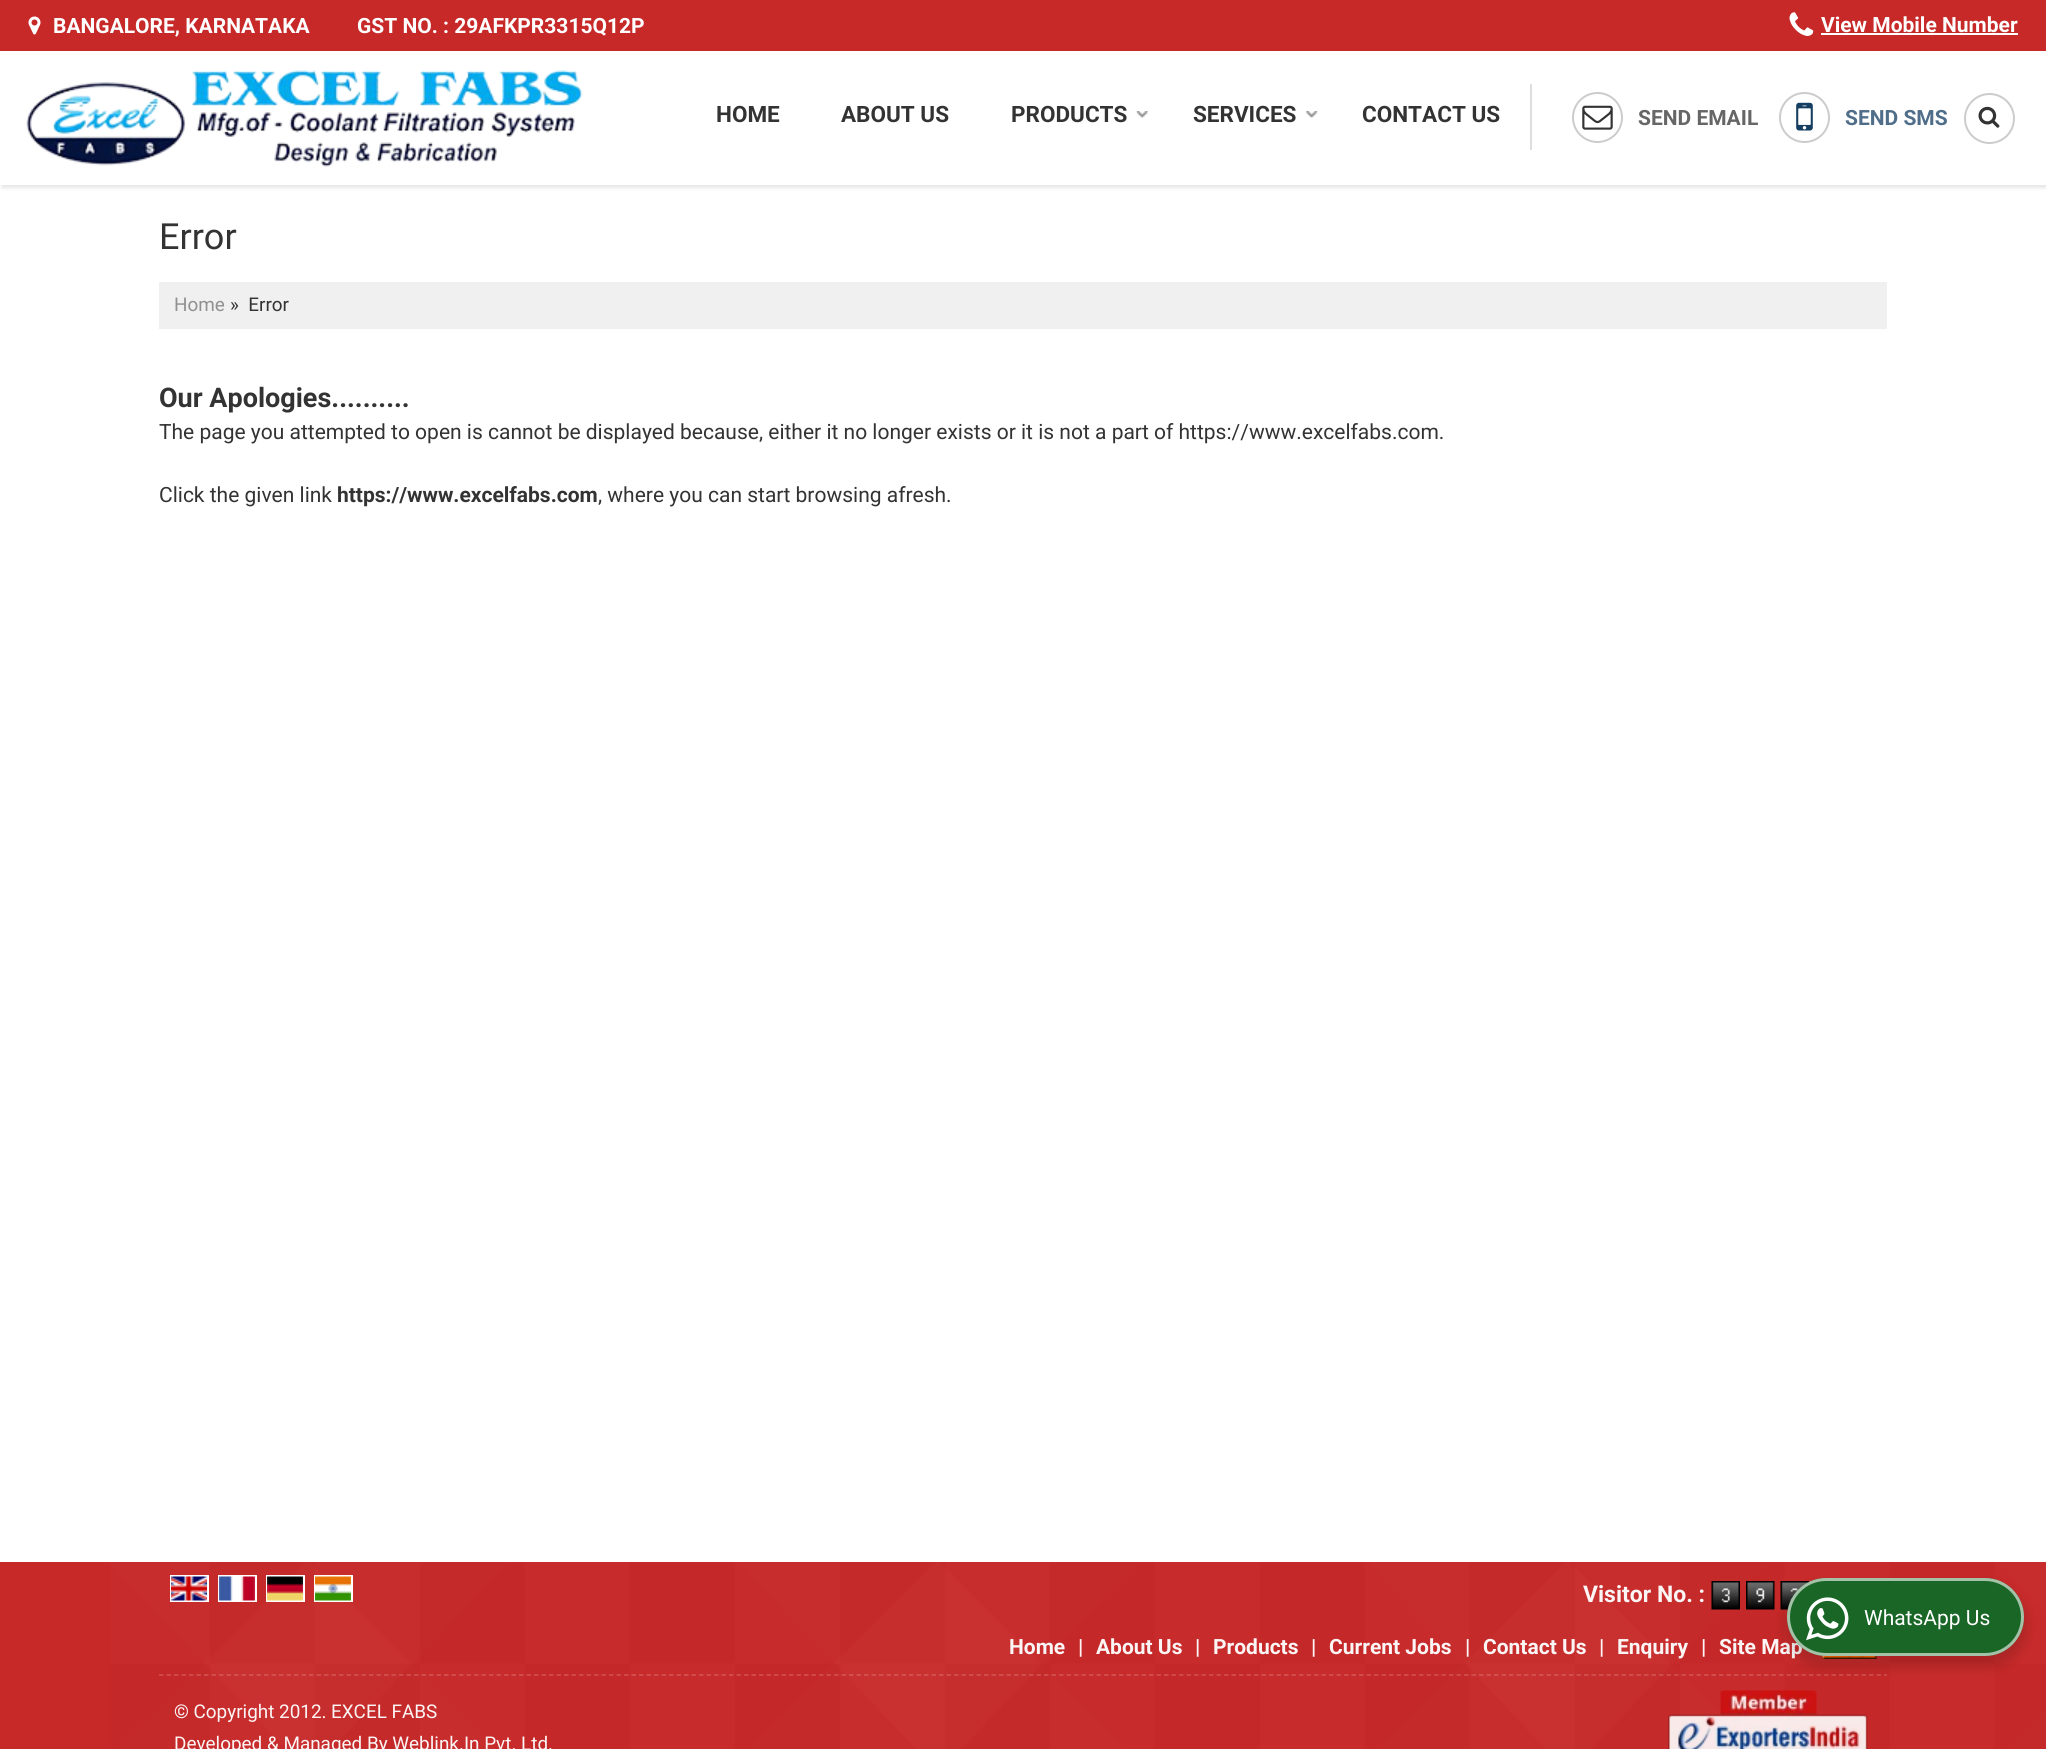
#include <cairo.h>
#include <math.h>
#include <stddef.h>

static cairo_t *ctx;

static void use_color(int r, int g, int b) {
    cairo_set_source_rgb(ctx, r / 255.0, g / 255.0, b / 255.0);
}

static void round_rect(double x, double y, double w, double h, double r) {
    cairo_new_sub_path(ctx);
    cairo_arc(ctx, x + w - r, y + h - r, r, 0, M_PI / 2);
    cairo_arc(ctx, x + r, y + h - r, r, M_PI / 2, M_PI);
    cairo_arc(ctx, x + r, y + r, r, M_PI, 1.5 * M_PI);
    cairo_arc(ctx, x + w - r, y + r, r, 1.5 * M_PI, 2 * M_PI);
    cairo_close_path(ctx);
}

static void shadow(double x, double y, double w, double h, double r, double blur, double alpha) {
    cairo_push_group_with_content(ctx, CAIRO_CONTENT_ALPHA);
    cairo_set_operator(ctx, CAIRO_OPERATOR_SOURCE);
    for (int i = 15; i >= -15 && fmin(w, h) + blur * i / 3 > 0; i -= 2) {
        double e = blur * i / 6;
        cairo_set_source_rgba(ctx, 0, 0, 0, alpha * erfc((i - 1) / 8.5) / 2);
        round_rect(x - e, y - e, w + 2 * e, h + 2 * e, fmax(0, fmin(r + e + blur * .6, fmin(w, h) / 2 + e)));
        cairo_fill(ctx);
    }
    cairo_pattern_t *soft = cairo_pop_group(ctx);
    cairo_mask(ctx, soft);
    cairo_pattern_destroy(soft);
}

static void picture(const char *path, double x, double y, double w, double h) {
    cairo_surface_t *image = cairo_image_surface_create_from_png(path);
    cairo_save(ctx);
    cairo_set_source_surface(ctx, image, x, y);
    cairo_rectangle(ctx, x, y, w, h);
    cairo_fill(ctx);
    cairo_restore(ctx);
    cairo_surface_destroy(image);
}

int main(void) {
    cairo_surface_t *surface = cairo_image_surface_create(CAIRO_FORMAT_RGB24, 2046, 1749);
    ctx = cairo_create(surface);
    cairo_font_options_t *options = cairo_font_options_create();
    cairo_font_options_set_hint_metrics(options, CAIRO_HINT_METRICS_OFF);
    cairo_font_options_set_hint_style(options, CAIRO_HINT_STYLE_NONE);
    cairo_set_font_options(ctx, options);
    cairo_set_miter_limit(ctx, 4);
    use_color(255, 255, 255);
    cairo_paint(ctx);
    cairo_save(ctx);
    cairo_set_fill_rule(ctx, CAIRO_FILL_RULE_EVEN_ODD);
    cairo_new_path(ctx);
    cairo_move_to(ctx, 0, 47);
    cairo_line_to(ctx, 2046, 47);
    cairo_line_to(ctx, 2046, 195);
    cairo_line_to(ctx, 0, 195);
    cairo_close_path(ctx);
    cairo_move_to(ctx, 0, 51);
    cairo_line_to(ctx, 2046, 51);
    cairo_line_to(ctx, 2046, 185);
    cairo_line_to(ctx, 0, 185);
    cairo_close_path(ctx);
    cairo_clip(ctx);
    use_color(0, 0, 0);
    shadow(2, 54, 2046, 134, 0, 2, 0.1);
    cairo_restore(ctx);
    use_color(199, 40, 40);
    cairo_rectangle(ctx, 0, 0, 2046, 51);
    cairo_fill(ctx);
    picture("img1.png", 28, 16, 13, 19);
    cairo_select_font_face(ctx, "Roboto", CAIRO_FONT_SLANT_NORMAL, CAIRO_FONT_WEIGHT_BOLD);
    cairo_set_font_size(ctx, 21);
    use_color(255, 255, 255);
    cairo_move_to(ctx, 53, 33);
    cairo_show_text(ctx, "BANGALORE, KARNATAKA");
    cairo_move_to(ctx, 357, 33);
    cairo_show_text(ctx, "GST NO. : 29AFKPR3315Q12P");
    picture("img2.png", 1789, 12, 25, 24);
    cairo_move_to(ctx, 1821, 32);
    cairo_show_text(ctx, "View Mobile Number");
    cairo_rectangle(ctx, 1821, 33, 197, 2);
    cairo_fill(ctx);
    picture("img3.png", 26, 70, 557, 97);
    cairo_set_font_size(ctx, 22.5);
    use_color(51, 51, 51);
    cairo_move_to(ctx, 716, 122);
    cairo_show_text(ctx, "HOME");
    cairo_move_to(ctx, 841, 122);
    cairo_show_text(ctx, "ABOUT US");
    cairo_move_to(ctx, 1011, 122);
    cairo_show_text(ctx, "PRODUCTS");
    picture("img4.png", 1136, 111, 12, 8);
    cairo_move_to(ctx, 1193, 122);
    cairo_show_text(ctx, "SERVICES");
    picture("img5.png", 1306, 111, 12, 7);
    cairo_move_to(ctx, 1362, 122);
    cairo_show_text(ctx, "CONTACT US");
    use_color(222, 222, 222);
    cairo_rectangle(ctx, 1530, 84, 2, 66);
    cairo_fill(ctx);
    cairo_arc(ctx, 1597.5, 117.5, 24.5, 0, 2 * M_PI);
    use_color(204, 204, 204);
    cairo_stroke(ctx);
    picture("img6.png", 1582, 105, 31, 25);
    cairo_set_font_size(ctx, 21);
    use_color(102, 102, 102);
    cairo_move_to(ctx, 1638, 125);
    cairo_show_text(ctx, "SEND EMAIL");
    cairo_new_path(ctx);
    cairo_arc(ctx, 1804.5, 117.5, 24.5, 0, 2 * M_PI);
    use_color(204, 204, 204);
    cairo_stroke(ctx);
    picture("img7.png", 1796, 102, 17, 29);
    use_color(80, 110, 137);
    cairo_move_to(ctx, 1845, 125);
    cairo_show_text(ctx, "SEND SMS");
    cairo_new_path(ctx);
    cairo_arc(ctx, 1989.5, 118.5, 24.5, 0, 2 * M_PI);
    use_color(204, 204, 204);
    cairo_stroke(ctx);
    picture("img8.png", 1978, 106, 22, 22);
    cairo_select_font_face(ctx, "Roboto", CAIRO_FONT_SLANT_NORMAL, CAIRO_FONT_WEIGHT_NORMAL);
    cairo_set_font_size(ctx, 36);
    use_color(51, 51, 51);
    cairo_move_to(ctx, 159, 249);
    cairo_show_text(ctx, "Error");
    use_color(240, 240, 240);
    cairo_rectangle(ctx, 159, 282, 1728, 47);
    cairo_fill(ctx);
    cairo_set_font_size(ctx, 18.9);
    use_color(144, 144, 144);
    cairo_move_to(ctx, 174, 311);
    cairo_show_text(ctx, "Home");
    use_color(51, 51, 51);
    cairo_move_to(ctx, 230, 311);
    cairo_show_text(ctx, "»  Error");
    cairo_select_font_face(ctx, "Roboto", CAIRO_FONT_SLANT_NORMAL, CAIRO_FONT_WEIGHT_BOLD);
    cairo_set_font_size(ctx, 27);
    cairo_move_to(ctx, 159, 407);
    cairo_show_text(ctx, "Our Apologies..........");
    cairo_select_font_face(ctx, "Roboto", CAIRO_FONT_SLANT_NORMAL, CAIRO_FONT_WEIGHT_NORMAL);
    cairo_set_font_size(ctx, 21);
    cairo_move_to(ctx, 159, 439);
    cairo_show_text(ctx, "The page you attempted to open is cannot be displayed because, either it no longer exists or it is not a part of https://www.excelfabs.com.");
    cairo_move_to(ctx, 159, 502);
    cairo_show_text(ctx, "Click the given link");
    cairo_select_font_face(ctx, "Roboto", CAIRO_FONT_SLANT_NORMAL, CAIRO_FONT_WEIGHT_BOLD);
    cairo_move_to(ctx, 337, 502);
    cairo_show_text(ctx, "https://www.excelfabs.com");
    cairo_select_font_face(ctx, "Roboto", CAIRO_FONT_SLANT_NORMAL, CAIRO_FONT_WEIGHT_NORMAL);
    cairo_move_to(ctx, 598, 502);
    cairo_show_text(ctx, ", where you can start browsing afresh.");
    use_color(199, 40, 40);
    cairo_rectangle(ctx, 0, 1562, 2046, 187);
    cairo_fill(ctx);
    picture("img9.png", 110, 1562, 1936, 187);
    cairo_rectangle(ctx, 171, 1576, 37, 25);
    use_color(255, 255, 255);
    cairo_stroke(ctx);
    cairo_rectangle(ctx, 219, 1576, 37, 25);
    cairo_stroke(ctx);
    cairo_rectangle(ctx, 267, 1576, 37, 25);
    cairo_stroke(ctx);
    cairo_rectangle(ctx, 315, 1576, 37, 25);
    cairo_stroke(ctx);
    picture("img10.png", 171, 1576, 36, 25);
    picture("img11.png", 219, 1576, 36, 25);
    picture("img12.png", 267, 1576, 36, 25);
    picture("img13.png", 315, 1576, 36, 25);
    cairo_select_font_face(ctx, "Roboto", CAIRO_FONT_SLANT_NORMAL, CAIRO_FONT_WEIGHT_BOLD);
    cairo_set_font_size(ctx, 23);
    use_color(252, 245, 245);
    cairo_move_to(ctx, 1583, 1602);
    cairo_show_text(ctx, "Visitor No. :");
    picture("img14.png", 1711, 1581, 29, 29);
    picture("img15.png", 1746, 1581, 29, 29);
    picture("img16.png", 1780, 1581, 29, 29);
    cairo_set_font_size(ctx, 21);
    cairo_move_to(ctx, 1009, 1654);
    cairo_show_text(ctx, "Home");
    cairo_move_to(ctx, 1078, 1654);
    cairo_show_text(ctx, "|");
    cairo_move_to(ctx, 1096, 1654);
    cairo_show_text(ctx, "About Us");
    cairo_move_to(ctx, 1195, 1654);
    cairo_show_text(ctx, "|");
    cairo_move_to(ctx, 1213, 1654);
    cairo_show_text(ctx, "Products");
    cairo_move_to(ctx, 1311, 1654);
    cairo_show_text(ctx, "|");
    cairo_move_to(ctx, 1329, 1654);
    cairo_show_text(ctx, "Current Jobs");
    cairo_move_to(ctx, 1465, 1654);
    cairo_show_text(ctx, "|");
    cairo_move_to(ctx, 1483, 1654);
    cairo_show_text(ctx, "Contact Us");
    cairo_move_to(ctx, 1599, 1654);
    cairo_show_text(ctx, "|");
    cairo_move_to(ctx, 1617, 1654);
    cairo_show_text(ctx, "Enquiry");
    cairo_move_to(ctx, 1701, 1654);
    cairo_show_text(ctx, "|");
    cairo_move_to(ctx, 1719, 1654);
    cairo_show_text(ctx, "Site Map");
    picture("img17.png", 1822, 1655, 55, 4);
    cairo_new_path(ctx);
    cairo_move_to(ctx, 159, 1675);
    cairo_line_to(ctx, 1887, 1675);
    cairo_set_source_rgba(ctx, 1, 1, 1, 0.2);
    cairo_set_line_width(ctx, 1.5);
    cairo_set_dash(ctx, (double[]){4.5, 3}, 2, 0);
    cairo_stroke(ctx);
    cairo_select_font_face(ctx, "Roboto", CAIRO_FONT_SLANT_NORMAL, CAIRO_FONT_WEIGHT_NORMAL);
    cairo_set_font_size(ctx, 18.9);
    use_color(252, 245, 245);
    cairo_move_to(ctx, 174, 1718);
    cairo_show_text(ctx, "© Copyright 2012.");
    cairo_move_to(ctx, 331, 1718);
    cairo_show_text(ctx, "EXCEL FABS");
    cairo_move_to(ctx, 174, 1750);
    cairo_show_text(ctx, "Developed & Managed By Weblink.In Pvt. Ltd.");
    picture("img18.png", 1668, 1690, 200, 59);
    use_color(0, 0, 0);
    shadow(1784, 1584, 243, 84, 42, 6, 0.14);
    use_color(25, 102, 38);
    round_rect(1787, 1578, 237, 78, 39);
    cairo_fill(ctx);
    round_rect(1788.5, 1579.5, 234, 75, 37.5);
    cairo_set_source_rgba(ctx, 1, 1, 1, 0.6);
    cairo_set_line_width(ctx, 3);
    cairo_set_dash(ctx, NULL, 0, 0);
    cairo_stroke(ctx);
    picture("img19.png", 1806, 1597, 43, 44);
    cairo_set_font_size(ctx, 21);
    use_color(255, 255, 255);
    cairo_move_to(ctx, 1864, 1625);
    cairo_show_text(ctx, "WhatsApp Us");
    cairo_surface_write_to_png(surface, "result.png");
    cairo_font_options_destroy(options);
    cairo_destroy(ctx);
    cairo_surface_destroy(surface);
    return 0;
}
